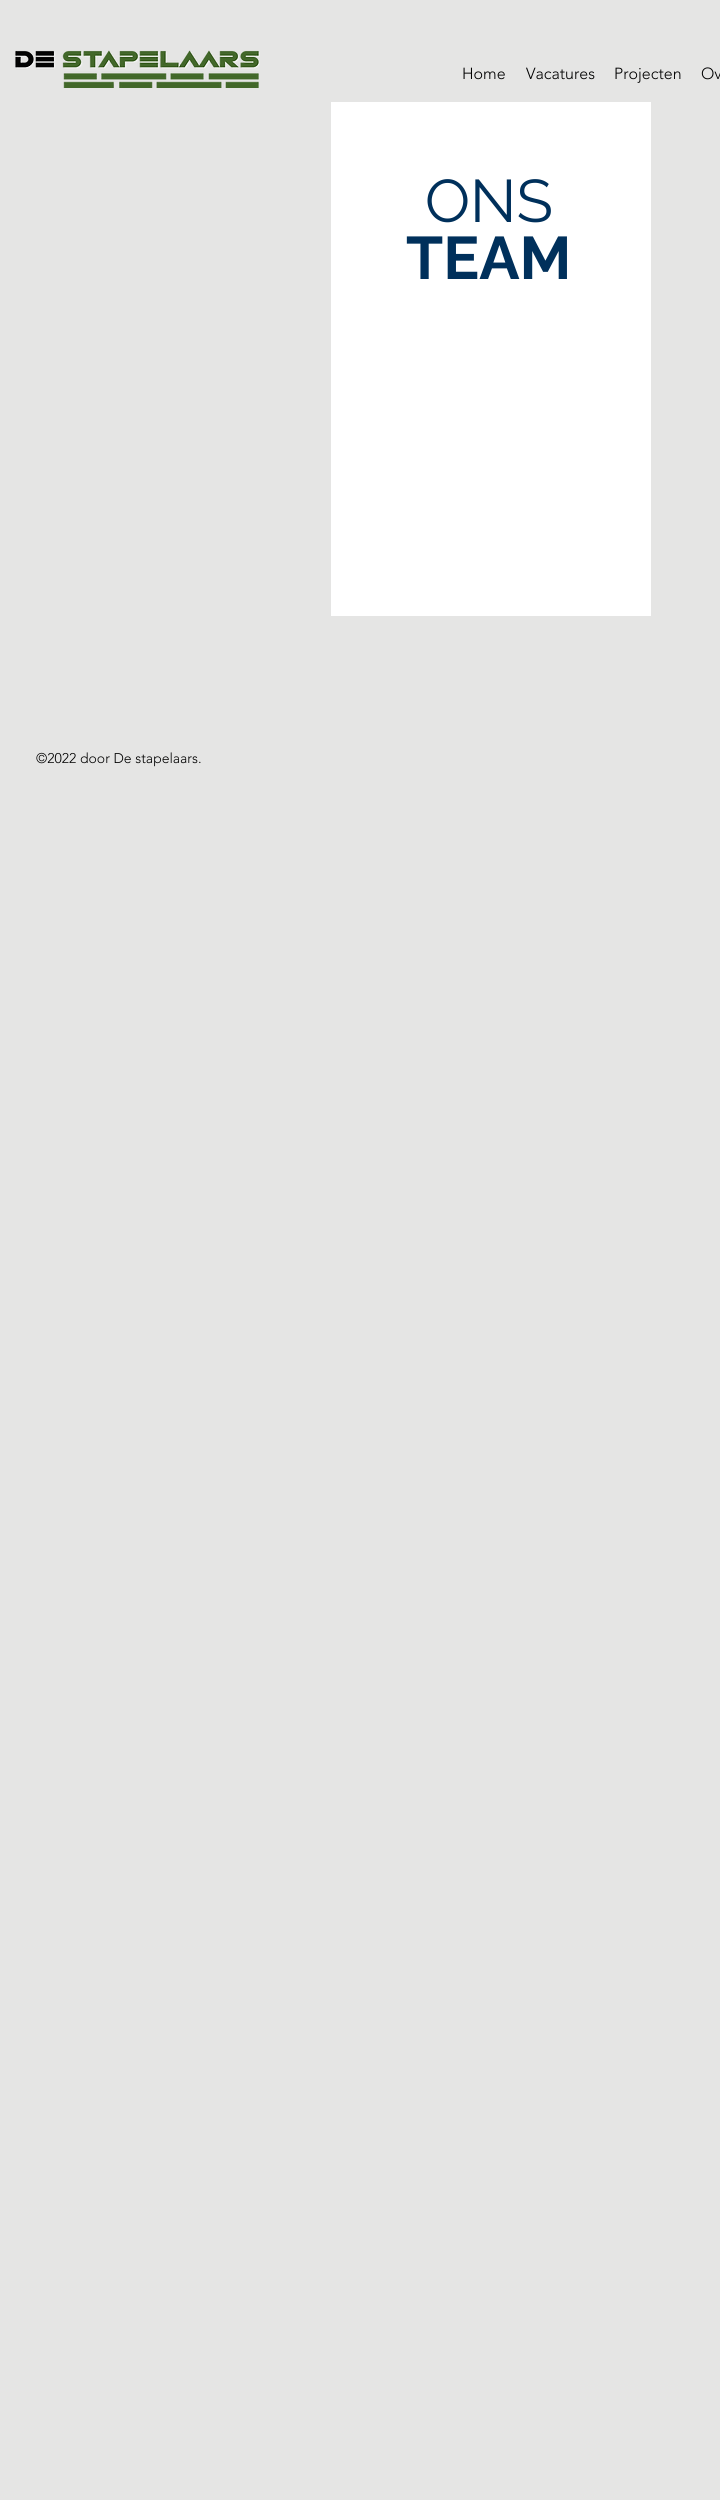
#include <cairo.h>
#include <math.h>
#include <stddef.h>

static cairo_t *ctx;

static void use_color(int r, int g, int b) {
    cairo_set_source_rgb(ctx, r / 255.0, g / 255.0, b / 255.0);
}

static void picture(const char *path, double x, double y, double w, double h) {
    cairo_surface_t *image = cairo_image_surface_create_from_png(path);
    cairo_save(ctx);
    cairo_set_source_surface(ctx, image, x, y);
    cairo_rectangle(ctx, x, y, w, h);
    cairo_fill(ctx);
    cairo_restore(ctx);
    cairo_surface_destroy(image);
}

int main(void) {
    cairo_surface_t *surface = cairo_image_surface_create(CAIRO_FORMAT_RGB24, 720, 2500);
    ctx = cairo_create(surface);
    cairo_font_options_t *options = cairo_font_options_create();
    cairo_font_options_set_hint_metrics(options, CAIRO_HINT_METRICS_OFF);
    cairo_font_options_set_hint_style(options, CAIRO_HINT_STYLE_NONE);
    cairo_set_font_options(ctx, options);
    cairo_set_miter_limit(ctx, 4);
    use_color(229, 229, 228);
    cairo_paint(ctx);
    picture("img1.png", 15, 50, 245, 38);
    cairo_select_font_face(ctx, "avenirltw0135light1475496 Light", CAIRO_FONT_SLANT_NORMAL, CAIRO_FONT_WEIGHT_NORMAL);
    cairo_set_font_size(ctx, 16);
    use_color(0, 0, 0);
    cairo_move_to(ctx, 462, 79);
    cairo_show_text(ctx, "Home");
    cairo_move_to(ctx, 526, 79);
    cairo_show_text(ctx, "Vacatures");
    cairo_move_to(ctx, 614, 79);
    cairo_show_text(ctx, "Projecten");
    cairo_move_to(ctx, 701, 79);
    cairo_show_text(ctx, "Ov");
    use_color(255, 255, 255);
    cairo_rectangle(ctx, 331, 102, 320, 514);
    cairo_fill(ctx);
    cairo_select_font_face(ctx, "Raleway", CAIRO_FONT_SLANT_NORMAL, CAIRO_FONT_WEIGHT_NORMAL);
    cairo_set_font_size(ctx, 60);
    use_color(0, 48, 91);
    cairo_move_to(ctx, 425, 222);
    cairo_show_text(ctx, "ONS");
    cairo_select_font_face(ctx, "Raleway", CAIRO_FONT_SLANT_NORMAL, CAIRO_FONT_WEIGHT_BOLD);
    cairo_move_to(ctx, 406, 279);
    cairo_show_text(ctx, "TEAM");
    cairo_select_font_face(ctx, "avenirltw0135light1475496 Light", CAIRO_FONT_SLANT_NORMAL, CAIRO_FONT_WEIGHT_NORMAL);
    cairo_set_font_size(ctx, 14);
    use_color(0, 0, 0);
    cairo_move_to(ctx, 36, 763);
    cairo_show_text(ctx, "©2022 door De stapelaars.");
    cairo_surface_write_to_png(surface, "result.png");
    cairo_font_options_destroy(options);
    cairo_destroy(ctx);
    cairo_surface_destroy(surface);
    return 0;
}
